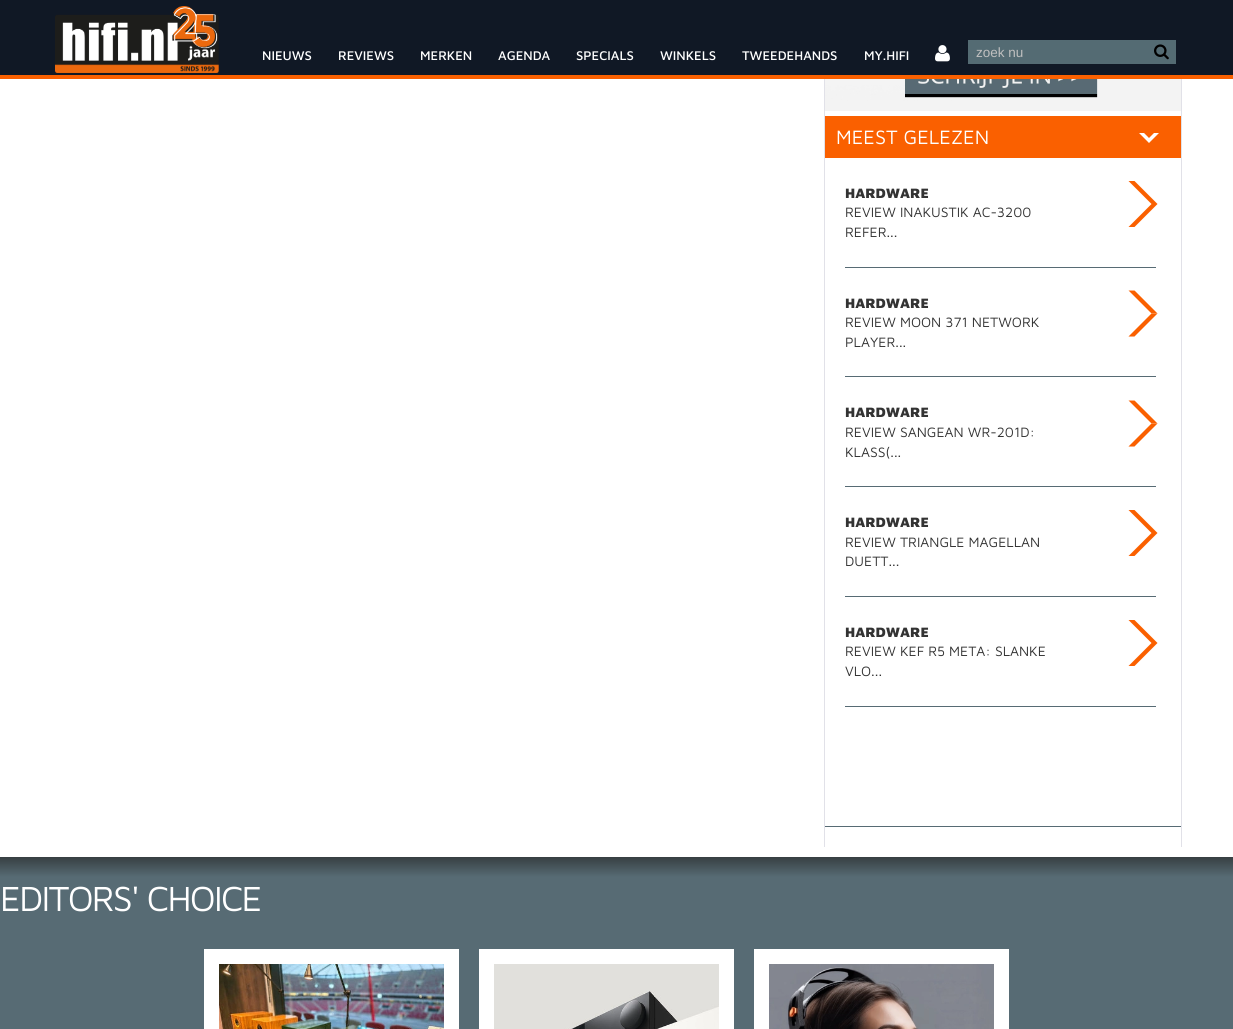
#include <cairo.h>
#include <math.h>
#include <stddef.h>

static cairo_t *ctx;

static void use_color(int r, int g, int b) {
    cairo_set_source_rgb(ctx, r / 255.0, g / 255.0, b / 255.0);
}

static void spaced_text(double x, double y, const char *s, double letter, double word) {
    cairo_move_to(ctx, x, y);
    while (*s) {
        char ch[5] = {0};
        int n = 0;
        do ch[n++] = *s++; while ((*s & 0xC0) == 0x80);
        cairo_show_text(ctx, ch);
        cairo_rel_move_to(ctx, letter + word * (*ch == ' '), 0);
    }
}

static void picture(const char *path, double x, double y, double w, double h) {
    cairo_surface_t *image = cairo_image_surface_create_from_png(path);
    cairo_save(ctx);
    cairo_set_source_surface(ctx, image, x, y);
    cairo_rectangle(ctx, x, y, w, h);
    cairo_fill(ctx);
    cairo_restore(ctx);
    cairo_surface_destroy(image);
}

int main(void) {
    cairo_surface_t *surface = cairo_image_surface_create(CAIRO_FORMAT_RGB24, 1233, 1029);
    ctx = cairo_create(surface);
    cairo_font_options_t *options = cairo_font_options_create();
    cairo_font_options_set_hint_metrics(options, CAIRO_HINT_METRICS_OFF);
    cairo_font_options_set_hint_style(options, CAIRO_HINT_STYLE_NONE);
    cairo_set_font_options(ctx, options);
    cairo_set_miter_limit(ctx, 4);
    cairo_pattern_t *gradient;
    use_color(255, 255, 255);
    cairo_paint(ctx);
    use_color(16, 24, 37);
    cairo_rectangle(ctx, 0, 0, 1233, 75);
    cairo_fill(ctx);
    use_color(250, 96, 0);
    cairo_rectangle(ctx, 0, 75, 1233, 4);
    cairo_fill(ctx);
    picture("img1.png", 55, 6, 164, 67);
    cairo_select_font_face(ctx, "Maven Pro Medium", CAIRO_FONT_SLANT_NORMAL, CAIRO_FONT_WEIGHT_NORMAL);
    cairo_set_font_size(ctx, 13);
    use_color(255, 255, 255);
    cairo_move_to(ctx, 262, 60);
    cairo_show_text(ctx, "NIEUWS");
    cairo_move_to(ctx, 338, 60);
    cairo_show_text(ctx, "REVIEWS");
    cairo_move_to(ctx, 420, 60);
    cairo_show_text(ctx, "MERKEN");
    cairo_move_to(ctx, 498, 60);
    cairo_show_text(ctx, "AGENDA");
    cairo_move_to(ctx, 576, 60);
    cairo_show_text(ctx, "SPECIALS");
    cairo_move_to(ctx, 660, 60);
    cairo_show_text(ctx, "WINKELS");
    cairo_move_to(ctx, 742, 60);
    cairo_show_text(ctx, "TWEEDEHANDS");
    cairo_move_to(ctx, 864, 60);
    cairo_show_text(ctx, "MY.HIFI");
    picture("img2.png", 935, 45, 15, 17);
    use_color(84, 107, 115);
    cairo_rectangle(ctx, 968, 40, 208, 24);
    cairo_fill(ctx);
    cairo_select_font_face(ctx, "Liberation Sans", CAIRO_FONT_SLANT_NORMAL, CAIRO_FONT_WEIGHT_NORMAL);
    cairo_set_font_size(ctx, 13.5);
    use_color(192, 192, 192);
    cairo_move_to(ctx, 976, 57);
    cairo_show_text(ctx, "zoek nu");
    picture("img3.png", 1154, 44, 15, 16);
    use_color(225, 225, 232);
    cairo_rectangle(ctx, 824, 79, 1, 768);
    cairo_fill(ctx);
    cairo_rectangle(ctx, 1181, 79, 1, 768);
    cairo_fill(ctx);
    picture("img4.png", 825, 79, 356, 32);
    use_color(250, 96, 0);
    cairo_rectangle(ctx, 825, 116, 356, 42);
    cairo_fill(ctx);
    cairo_select_font_face(ctx, "Maven Pro", CAIRO_FONT_SLANT_NORMAL, CAIRO_FONT_WEIGHT_NORMAL);
    cairo_set_font_size(ctx, 20);
    use_color(255, 255, 255);
    cairo_move_to(ctx, 836, 144);
    cairo_show_text(ctx, "MEEST GELEZEN");
    cairo_new_path(ctx);
    cairo_move_to(ctx, 1139, 133);
    cairo_line_to(ctx, 1159, 133);
    cairo_line_to(ctx, 1149, 143);
    cairo_close_path(ctx);
    cairo_fill(ctx);
    use_color(250, 96, 0);
    cairo_new_path(ctx);
    cairo_move_to(ctx, 1139, 128);
    cairo_line_to(ctx, 1159, 128);
    cairo_line_to(ctx, 1149, 138);
    cairo_close_path(ctx);
    cairo_fill(ctx);
    use_color(87, 107, 116);
    cairo_rectangle(ctx, 845, 267, 311, 1);
    cairo_fill(ctx);
    cairo_select_font_face(ctx, "Maven Pro Black", CAIRO_FONT_SLANT_NORMAL, CAIRO_FONT_WEIGHT_NORMAL);
    cairo_set_font_size(ctx, 14);
    use_color(51, 51, 51);
    cairo_move_to(ctx, 845, 198);
    cairo_show_text(ctx, "HARDWARE");
    cairo_select_font_face(ctx, "Maven Pro", CAIRO_FONT_SLANT_NORMAL, CAIRO_FONT_WEIGHT_NORMAL);
    cairo_move_to(ctx, 845, 217);
    cairo_show_text(ctx, "REVIEW INAKUSTIK AC-3200");
    cairo_move_to(ctx, 845, 237);
    cairo_show_text(ctx, "REFER...");
    use_color(250, 96, 0);
    cairo_new_path(ctx);
    cairo_move_to(ctx, 1128.5, 181);
    cairo_line_to(ctx, 1134.5, 181);
    cairo_line_to(ctx, 1157.5, 204);
    cairo_line_to(ctx, 1151.5, 204);
    cairo_close_path(ctx);
    cairo_move_to(ctx, 1151.5, 204);
    cairo_line_to(ctx, 1157.5, 204);
    cairo_line_to(ctx, 1134.5, 227);
    cairo_line_to(ctx, 1128.5, 227);
    cairo_close_path(ctx);
    cairo_fill(ctx);
    use_color(87, 107, 116);
    cairo_rectangle(ctx, 845, 376, 311, 1);
    cairo_fill(ctx);
    cairo_select_font_face(ctx, "Maven Pro Black", CAIRO_FONT_SLANT_NORMAL, CAIRO_FONT_WEIGHT_NORMAL);
    use_color(51, 51, 51);
    cairo_move_to(ctx, 845, 308);
    cairo_show_text(ctx, "HARDWARE");
    cairo_select_font_face(ctx, "Maven Pro", CAIRO_FONT_SLANT_NORMAL, CAIRO_FONT_WEIGHT_NORMAL);
    cairo_move_to(ctx, 845, 327);
    cairo_show_text(ctx, "REVIEW MOON 371 NETWORK");
    cairo_move_to(ctx, 845, 347);
    cairo_show_text(ctx, "PLAYER...");
    use_color(250, 96, 0);
    cairo_new_path(ctx);
    cairo_move_to(ctx, 1128.5, 290.5);
    cairo_line_to(ctx, 1134.5, 290.5);
    cairo_line_to(ctx, 1157.5, 313.5);
    cairo_line_to(ctx, 1151.5, 313.5);
    cairo_close_path(ctx);
    cairo_fill(ctx);
    cairo_new_path(ctx);
    cairo_move_to(ctx, 1151.5, 313.5);
    cairo_line_to(ctx, 1157.5, 313.5);
    cairo_line_to(ctx, 1134.5, 336.5);
    cairo_line_to(ctx, 1128.5, 336.5);
    cairo_close_path(ctx);
    cairo_fill(ctx);
    use_color(87, 107, 116);
    cairo_rectangle(ctx, 845, 486, 311, 1);
    cairo_fill(ctx);
    cairo_select_font_face(ctx, "Maven Pro Black", CAIRO_FONT_SLANT_NORMAL, CAIRO_FONT_WEIGHT_NORMAL);
    use_color(51, 51, 51);
    cairo_move_to(ctx, 845, 417);
    cairo_show_text(ctx, "HARDWARE");
    cairo_select_font_face(ctx, "Maven Pro", CAIRO_FONT_SLANT_NORMAL, CAIRO_FONT_WEIGHT_NORMAL);
    cairo_move_to(ctx, 845, 437);
    cairo_show_text(ctx, "REVIEW SANGEAN WR-201D:");
    cairo_move_to(ctx, 845, 457);
    cairo_show_text(ctx, "KLASS(...");
    use_color(250, 96, 0);
    cairo_new_path(ctx);
    cairo_move_to(ctx, 1128.5, 400.5);
    cairo_line_to(ctx, 1134.5, 400.5);
    cairo_line_to(ctx, 1157.5, 423.5);
    cairo_line_to(ctx, 1151.5, 423.5);
    cairo_close_path(ctx);
    cairo_fill(ctx);
    cairo_new_path(ctx);
    cairo_move_to(ctx, 1151.5, 423.5);
    cairo_line_to(ctx, 1157.5, 423.5);
    cairo_line_to(ctx, 1134.5, 446.5);
    cairo_line_to(ctx, 1128.5, 446.5);
    cairo_close_path(ctx);
    cairo_fill(ctx);
    use_color(87, 107, 116);
    cairo_rectangle(ctx, 845, 596, 311, 1);
    cairo_fill(ctx);
    cairo_select_font_face(ctx, "Maven Pro Black", CAIRO_FONT_SLANT_NORMAL, CAIRO_FONT_WEIGHT_NORMAL);
    use_color(51, 51, 51);
    cairo_move_to(ctx, 845, 527);
    cairo_show_text(ctx, "HARDWARE");
    cairo_select_font_face(ctx, "Maven Pro", CAIRO_FONT_SLANT_NORMAL, CAIRO_FONT_WEIGHT_NORMAL);
    cairo_move_to(ctx, 845, 547);
    cairo_show_text(ctx, "REVIEW TRIANGLE MAGELLAN");
    cairo_move_to(ctx, 845, 566);
    cairo_show_text(ctx, "DUETT...");
    use_color(250, 96, 0);
    cairo_new_path(ctx);
    cairo_move_to(ctx, 1128.5, 510);
    cairo_line_to(ctx, 1134.5, 510);
    cairo_line_to(ctx, 1157.5, 533);
    cairo_line_to(ctx, 1151.5, 533);
    cairo_close_path(ctx);
    cairo_move_to(ctx, 1151.5, 533);
    cairo_line_to(ctx, 1157.5, 533);
    cairo_line_to(ctx, 1134.5, 556);
    cairo_line_to(ctx, 1128.5, 556);
    cairo_close_path(ctx);
    cairo_fill(ctx);
    use_color(87, 107, 116);
    cairo_rectangle(ctx, 845, 706, 311, 1);
    cairo_fill(ctx);
    cairo_select_font_face(ctx, "Maven Pro Black", CAIRO_FONT_SLANT_NORMAL, CAIRO_FONT_WEIGHT_NORMAL);
    use_color(51, 51, 51);
    cairo_move_to(ctx, 845, 637);
    cairo_show_text(ctx, "HARDWARE");
    cairo_select_font_face(ctx, "Maven Pro", CAIRO_FONT_SLANT_NORMAL, CAIRO_FONT_WEIGHT_NORMAL);
    cairo_move_to(ctx, 845, 656);
    cairo_show_text(ctx, "REVIEW KEF R5 META: SLANKE");
    cairo_move_to(ctx, 845, 676);
    cairo_show_text(ctx, "VLO...");
    use_color(250, 96, 0);
    cairo_new_path(ctx);
    cairo_move_to(ctx, 1128.5, 620);
    cairo_line_to(ctx, 1134.5, 620);
    cairo_line_to(ctx, 1157.5, 643);
    cairo_line_to(ctx, 1151.5, 643);
    cairo_close_path(ctx);
    cairo_move_to(ctx, 1151.5, 643);
    cairo_line_to(ctx, 1157.5, 643);
    cairo_line_to(ctx, 1134.5, 666);
    cairo_line_to(ctx, 1128.5, 666);
    cairo_close_path(ctx);
    cairo_fill(ctx);
    use_color(87, 107, 116);
    cairo_rectangle(ctx, 825, 826, 356, 1);
    cairo_fill(ctx);
    cairo_rectangle(ctx, 0, 877, 1233, 152);
    cairo_fill(ctx);
    gradient = cairo_pattern_create_linear(617, 857, 617, 877);
    cairo_pattern_add_color_stop_rgba(gradient, 0, 0.216, 0.247, 0.259, 1);
    cairo_pattern_add_color_stop_rgba(gradient, 1, 0.341, 0.42, 0.455, 1);
    cairo_set_source(ctx, gradient);
    cairo_pattern_destroy(gradient);
    cairo_rectangle(ctx, 0, 857, 1233, 20);
    cairo_fill(ctx);
    cairo_set_font_size(ctx, 36);
    use_color(255, 255, 255);
    spaced_text(0, 911, "EDITORS' CHOICE", -1.75, 0);
    cairo_rectangle(ctx, 204, 949, 255, 80);
    cairo_fill(ctx);
    picture("img5.png", 219, 964, 225, 65);
    cairo_rectangle(ctx, 479, 949, 255, 80);
    cairo_fill(ctx);
    picture("img6.png", 494, 964, 225, 65);
    cairo_rectangle(ctx, 754, 949, 255, 80);
    cairo_fill(ctx);
    picture("img7.png", 769, 964, 225, 65);
    cairo_surface_write_to_png(surface, "result.png");
    cairo_font_options_destroy(options);
    cairo_destroy(ctx);
    cairo_surface_destroy(surface);
    return 0;
}
